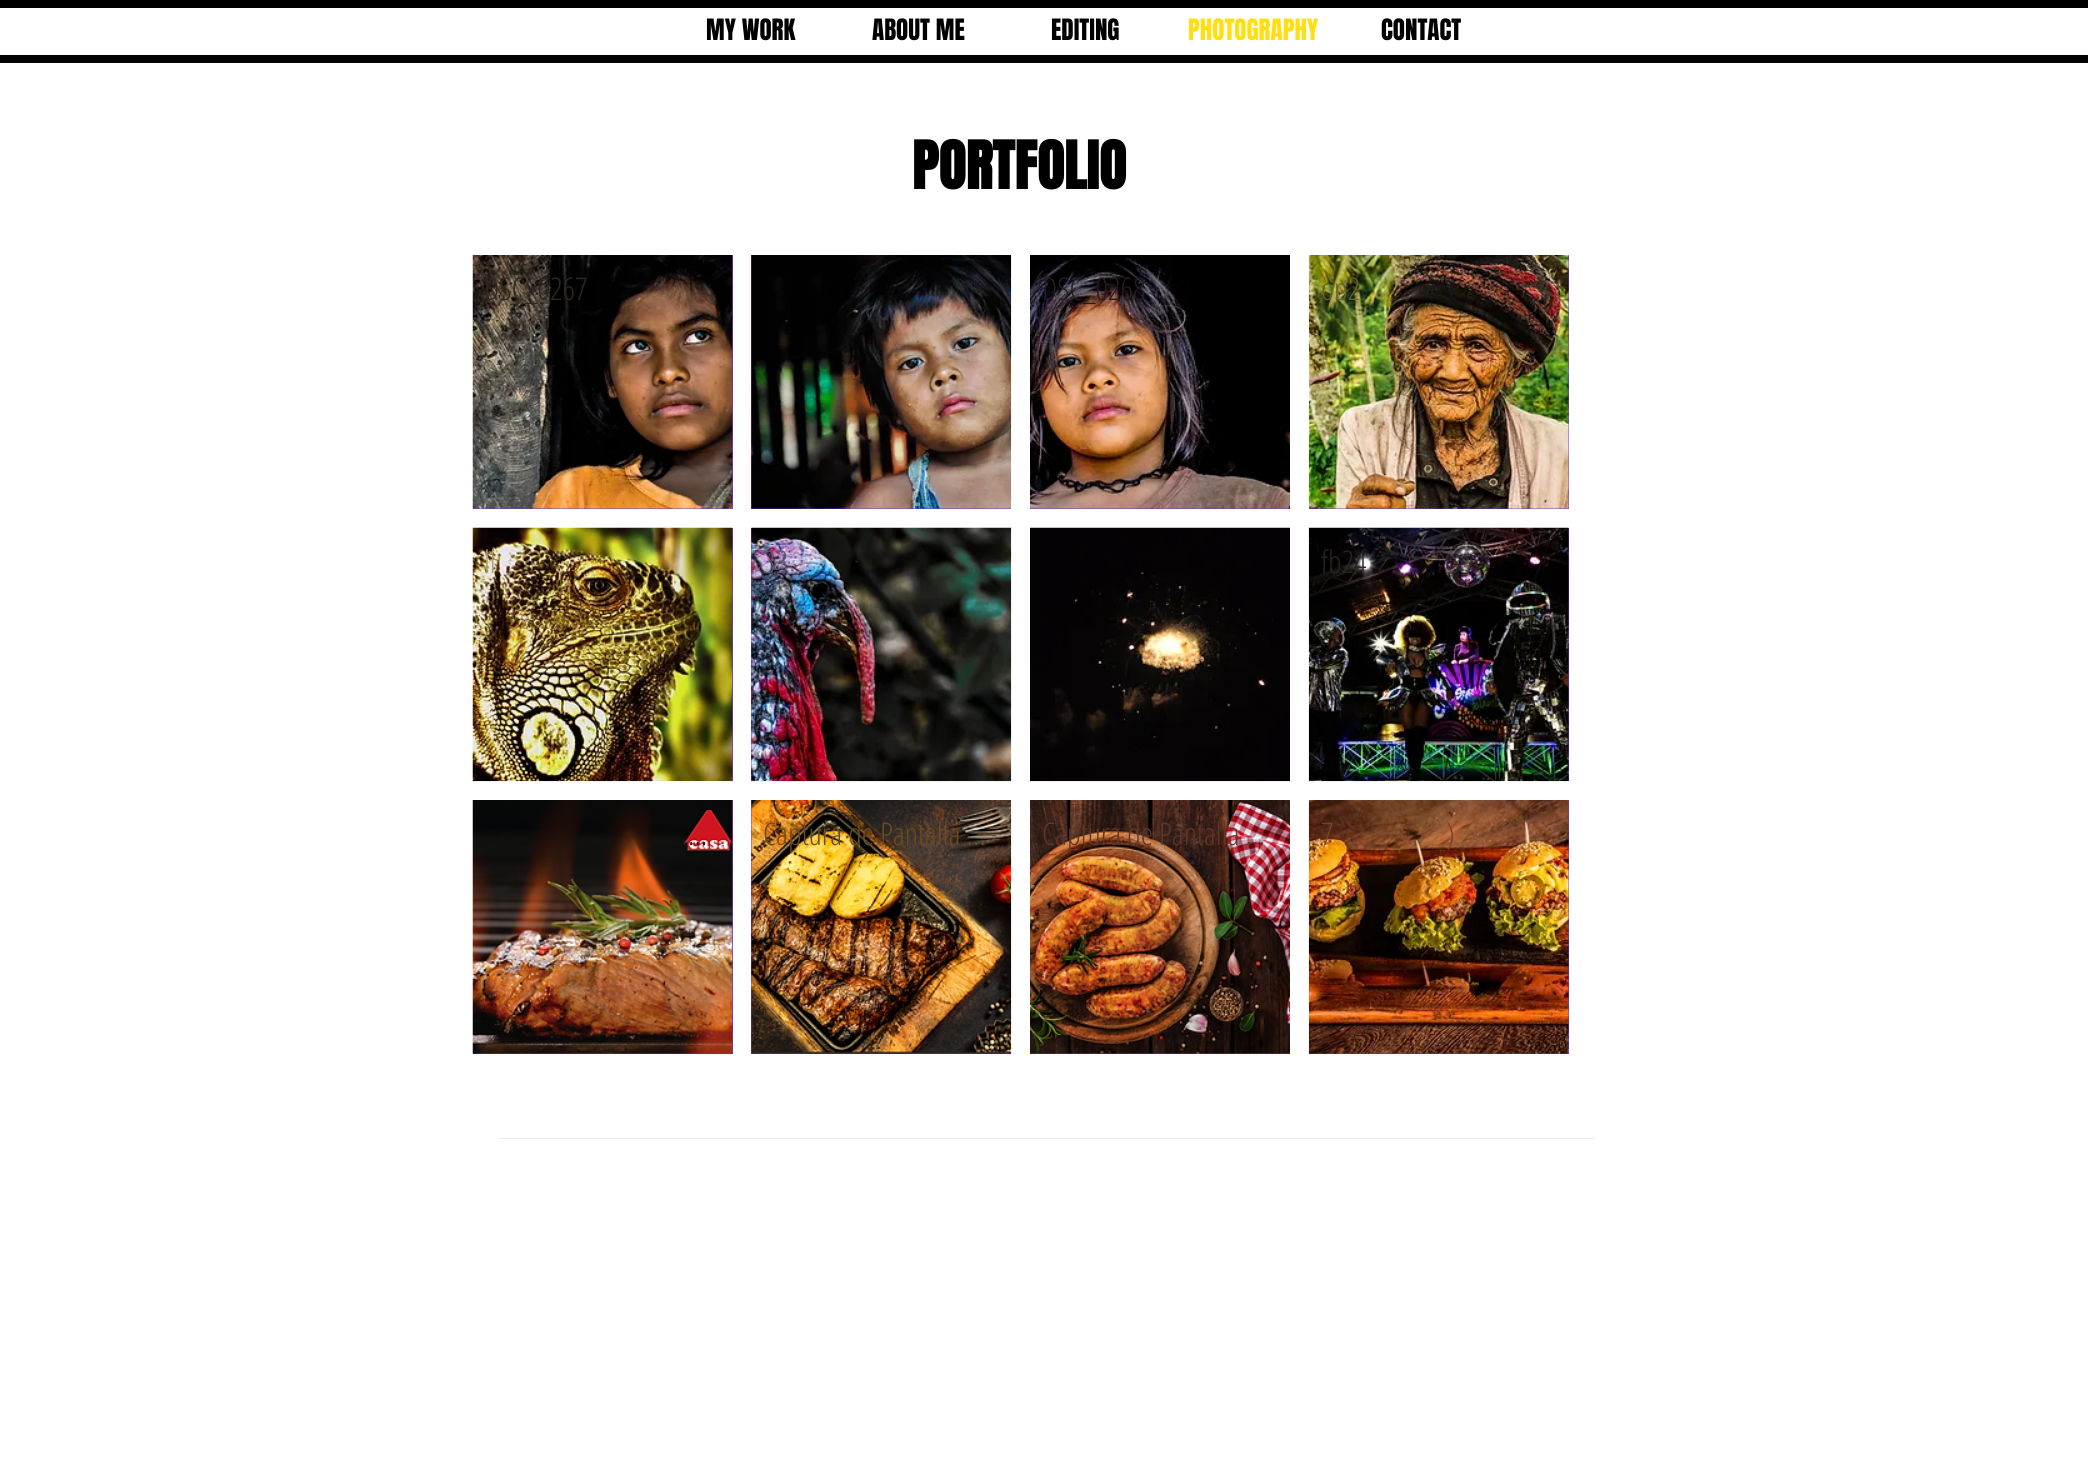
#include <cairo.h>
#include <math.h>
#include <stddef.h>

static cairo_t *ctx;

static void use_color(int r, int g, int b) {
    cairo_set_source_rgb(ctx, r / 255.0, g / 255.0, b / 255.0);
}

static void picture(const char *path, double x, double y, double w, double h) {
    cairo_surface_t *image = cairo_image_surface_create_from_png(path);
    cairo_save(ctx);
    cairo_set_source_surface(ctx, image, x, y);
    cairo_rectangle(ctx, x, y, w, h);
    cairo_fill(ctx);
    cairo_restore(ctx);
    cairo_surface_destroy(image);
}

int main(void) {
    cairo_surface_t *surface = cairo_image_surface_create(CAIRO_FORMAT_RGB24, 2088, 1474);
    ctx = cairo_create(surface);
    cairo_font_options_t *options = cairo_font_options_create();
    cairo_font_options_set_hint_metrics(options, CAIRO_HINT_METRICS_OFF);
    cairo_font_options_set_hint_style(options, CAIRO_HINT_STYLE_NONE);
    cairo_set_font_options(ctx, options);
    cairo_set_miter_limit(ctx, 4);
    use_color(255, 255, 255);
    cairo_paint(ctx);
    use_color(0, 0, 0);
    cairo_rectangle(ctx, 0, 0, 2088, 8);
    cairo_fill(ctx);
    cairo_rectangle(ctx, 0, 55, 2088, 8);
    cairo_fill(ctx);
    cairo_select_font_face(ctx, "Anton", CAIRO_FONT_SLANT_NORMAL, CAIRO_FONT_WEIGHT_NORMAL);
    cairo_set_font_size(ctx, 25);
    cairo_move_to(ctx, 706, 40);
    cairo_show_text(ctx, "MY WORK");
    cairo_move_to(ctx, 872, 40);
    cairo_show_text(ctx, "ABOUT ME");
    cairo_move_to(ctx, 1051, 40);
    cairo_show_text(ctx, "EDITING");
    use_color(255, 223, 17);
    cairo_move_to(ctx, 1188, 40);
    cairo_show_text(ctx, "PHOTOGRAPHY");
    use_color(0, 0, 0);
    cairo_move_to(ctx, 1381, 40);
    cairo_show_text(ctx, "CONTACT");
    cairo_select_font_face(ctx, "Anton", CAIRO_FONT_SLANT_NORMAL, CAIRO_FONT_WEIGHT_BOLD);
    cairo_set_font_size(ctx, 56);
    cairo_move_to(ctx, 912, 189);
    cairo_show_text(ctx, "PORTFOLIO");
    use_color(116, 47, 214);
    cairo_rectangle(ctx, 473, 255, 260, 254);
    cairo_fill(ctx);
    picture("img1.png", 472, 255, 261, 254);
    cairo_select_font_face(ctx, "Open Sans Condensed Light", CAIRO_FONT_SLANT_NORMAL, CAIRO_FONT_WEIGHT_NORMAL);
    cairo_set_font_size(ctx, 31.25);
    use_color(46, 40, 33);
    cairo_move_to(ctx, 484, 300);
    cairo_show_text(ctx, "DSC_0267");
    use_color(116, 47, 214);
    cairo_rectangle(ctx, 751, 255, 260, 254);
    cairo_fill(ctx);
    picture("img2.png", 751, 255, 261, 254);
    cairo_rectangle(ctx, 1030, 508, 260, 1);
    cairo_fill(ctx);
    picture("img3.png", 1030, 255, 260, 254);
    use_color(38, 28, 32);
    cairo_move_to(ctx, 1042, 300);
    cairo_show_text(ctx, "DSC_0268");
    use_color(116, 47, 214);
    cairo_rectangle(ctx, 1309, 255, 260, 254);
    cairo_fill(ctx);
    picture("img4.png", 1308, 255, 261, 254);
    use_color(98, 102, 35);
    cairo_move_to(ctx, 1321, 300);
    cairo_show_text(ctx, "op2");
    use_color(116, 47, 214);
    cairo_rectangle(ctx, 732, 528, 1, 253);
    cairo_fill(ctx);
    picture("img5.png", 472, 527, 261, 255);
    use_color(171, 158, 123);
    cairo_move_to(ctx, 484, 573);
    cairo_show_text(ctx, "ll");
    use_color(116, 47, 214);
    cairo_rectangle(ctx, 751, 528, 1, 253);
    cairo_fill(ctx);
    picture("img6.png", 751, 527, 261, 255);
    use_color(101, 84, 116);
    cairo_move_to(ctx, 763, 573);
    cairo_show_text(ctx, "33");
    picture("img7.png", 1030, 527, 260, 255);
    use_color(116, 47, 214);
    cairo_rectangle(ctx, 1568, 528, 1, 253);
    cairo_fill(ctx);
    picture("img8.png", 1308, 527, 261, 255);
    use_color(38, 37, 36);
    cairo_move_to(ctx, 1321, 573);
    cairo_show_text(ctx, "fb24");
    use_color(116, 47, 214);
    cairo_rectangle(ctx, 473, 800, 260, 254);
    cairo_fill(ctx);
    picture("img9.png", 472, 800, 261, 254);
    use_color(27, 18, 15);
    cairo_move_to(ctx, 688, 845);
    cairo_show_text(ctx, "…");
    use_color(116, 47, 214);
    cairo_rectangle(ctx, 751, 800, 260, 254);
    cairo_fill(ctx);
    picture("img10.png", 751, 800, 261, 254);
    use_color(105, 75, 34);
    cairo_move_to(ctx, 763, 845);
    cairo_show_text(ctx, "Captura de Pantalla …");
    use_color(116, 47, 214);
    cairo_rectangle(ctx, 1030, 1053, 260, 1);
    cairo_fill(ctx);
    picture("img11.png", 1030, 800, 260, 254);
    use_color(98, 54, 39);
    cairo_move_to(ctx, 1042, 845);
    cairo_show_text(ctx, "Captura de Pantalla …");
    use_color(116, 47, 214);
    cairo_rectangle(ctx, 1309, 800, 260, 254);
    cairo_fill(ctx);
    picture("img12.png", 1308, 800, 261, 254);
    use_color(122, 68, 36);
    cairo_move_to(ctx, 1321, 845);
    cairo_show_text(ctx, "7");
    cairo_move_to(ctx, 1446, 845);
    cairo_show_text(ctx, ")");
    use_color(234, 236, 235);
    cairo_rectangle(ctx, 499, 1138, 1096, 1);
    cairo_fill(ctx);
    cairo_surface_write_to_png(surface, "result.png");
    cairo_font_options_destroy(options);
    cairo_destroy(ctx);
    cairo_surface_destroy(surface);
    return 0;
}
